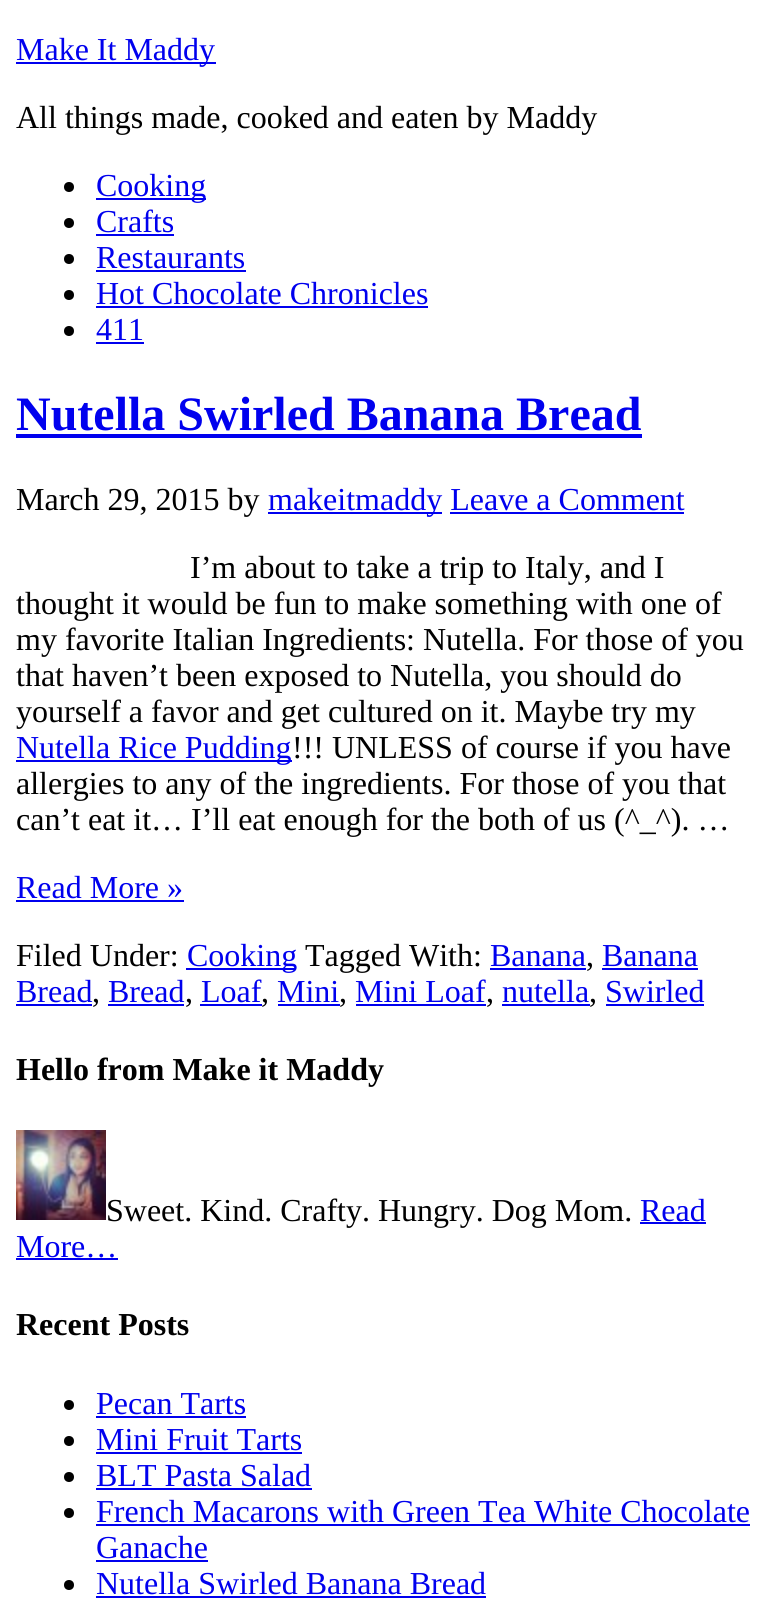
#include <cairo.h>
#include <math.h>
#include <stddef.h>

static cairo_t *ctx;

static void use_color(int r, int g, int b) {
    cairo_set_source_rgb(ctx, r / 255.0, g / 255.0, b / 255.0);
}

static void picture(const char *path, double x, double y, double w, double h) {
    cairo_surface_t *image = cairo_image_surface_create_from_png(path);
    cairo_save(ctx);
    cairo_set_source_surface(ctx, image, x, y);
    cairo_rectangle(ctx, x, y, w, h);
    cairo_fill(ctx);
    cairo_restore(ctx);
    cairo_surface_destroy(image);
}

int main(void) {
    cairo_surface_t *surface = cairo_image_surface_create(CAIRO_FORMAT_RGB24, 782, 1623);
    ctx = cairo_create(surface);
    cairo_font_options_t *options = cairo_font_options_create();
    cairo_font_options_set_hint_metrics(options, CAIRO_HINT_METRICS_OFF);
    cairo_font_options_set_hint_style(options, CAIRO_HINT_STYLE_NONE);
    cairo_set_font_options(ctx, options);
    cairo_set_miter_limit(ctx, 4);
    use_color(255, 255, 255);
    cairo_paint(ctx);
    use_color(0, 0, 238);
    cairo_rectangle(ctx, 16, 62, 200, 2);
    cairo_fill(ctx);
    cairo_select_font_face(ctx, "Liberation Serif", CAIRO_FONT_SLANT_NORMAL, CAIRO_FONT_WEIGHT_NORMAL);
    cairo_set_font_size(ctx, 32);
    cairo_move_to(ctx, 16, 60);
    cairo_show_text(ctx, "Make It Maddy");
    use_color(0, 0, 0);
    cairo_move_to(ctx, 16, 128);
    cairo_show_text(ctx, "All things made, cooked and eaten by Maddy");
    cairo_new_path(ctx);
    cairo_arc(ctx, 69, 187, 5, 0, 2 * M_PI);
    cairo_fill(ctx);
    use_color(0, 0, 238);
    cairo_rectangle(ctx, 96, 198, 110, 2);
    cairo_fill(ctx);
    cairo_move_to(ctx, 96, 196);
    cairo_show_text(ctx, "Cooking");
    use_color(0, 0, 0);
    cairo_new_path(ctx);
    cairo_arc(ctx, 69, 223, 5, 0, 2 * M_PI);
    cairo_fill(ctx);
    use_color(0, 0, 238);
    cairo_move_to(ctx, 96, 232);
    cairo_show_text(ctx, "Crafts");
    cairo_rectangle(ctx, 96, 234, 78, 2);
    cairo_fill(ctx);
    use_color(0, 0, 0);
    cairo_arc(ctx, 69, 259, 5, 0, 2 * M_PI);
    cairo_fill(ctx);
    use_color(0, 0, 238);
    cairo_move_to(ctx, 96, 268);
    cairo_show_text(ctx, "Restaurants");
    cairo_rectangle(ctx, 96, 270, 150, 2);
    cairo_fill(ctx);
    use_color(0, 0, 0);
    cairo_arc(ctx, 69, 295, 5, 0, 2 * M_PI);
    cairo_fill(ctx);
    use_color(0, 0, 238);
    cairo_move_to(ctx, 96, 304);
    cairo_show_text(ctx, "Hot Chocolate Chronicles");
    cairo_rectangle(ctx, 96, 306, 332, 2);
    cairo_fill(ctx);
    use_color(0, 0, 0);
    cairo_arc(ctx, 69, 331, 5, 0, 2 * M_PI);
    cairo_fill(ctx);
    use_color(0, 0, 238);
    cairo_move_to(ctx, 96, 340);
    cairo_show_text(ctx, "411");
    cairo_rectangle(ctx, 96, 342, 48, 2);
    cairo_fill(ctx);
    cairo_select_font_face(ctx, "Liberation Serif", CAIRO_FONT_SLANT_NORMAL, CAIRO_FONT_WEIGHT_BOLD);
    cairo_set_font_size(ctx, 48);
    cairo_move_to(ctx, 16, 430);
    cairo_show_text(ctx, "Nutella Swirled Banana Bread");
    cairo_rectangle(ctx, 16, 434, 626, 4);
    cairo_fill(ctx);
    cairo_select_font_face(ctx, "Liberation Serif", CAIRO_FONT_SLANT_NORMAL, CAIRO_FONT_WEIGHT_NORMAL);
    cairo_set_font_size(ctx, 32);
    use_color(0, 0, 0);
    cairo_move_to(ctx, 16, 510);
    cairo_show_text(ctx, "March 29, 2015 by");
    use_color(0, 0, 238);
    cairo_rectangle(ctx, 268, 512, 174, 2);
    cairo_fill(ctx);
    cairo_move_to(ctx, 268, 510);
    cairo_show_text(ctx, "makeitmaddy Leave a Comment");
    cairo_rectangle(ctx, 450, 512, 234, 2);
    cairo_fill(ctx);
    use_color(0, 0, 0);
    cairo_move_to(ctx, 190, 578);
    cairo_show_text(ctx, "I’m about to take a trip to Italy, and I");
    cairo_move_to(ctx, 16, 614);
    cairo_show_text(ctx, "thought it would be fun to make something with one of");
    cairo_move_to(ctx, 16, 650);
    cairo_show_text(ctx, "my favorite Italian Ingredients: Nutella. For those of you");
    cairo_move_to(ctx, 16, 686);
    cairo_show_text(ctx, "that haven’t been exposed to Nutella, you should do");
    cairo_move_to(ctx, 16, 722);
    cairo_show_text(ctx, "yourself a favor and get cultured on it. Maybe try my");
    use_color(0, 0, 238);
    cairo_rectangle(ctx, 16, 760, 276, 2);
    cairo_fill(ctx);
    cairo_move_to(ctx, 16, 758);
    cairo_show_text(ctx, "Nutella Rice Pudding");
    use_color(0, 0, 0);
    cairo_move_to(ctx, 292, 758);
    cairo_show_text(ctx, "!!! UNLESS of course if you have");
    cairo_move_to(ctx, 16, 794);
    cairo_show_text(ctx, "allergies to any of the ingredients. For those of you that");
    cairo_move_to(ctx, 16, 830);
    cairo_show_text(ctx, "can’t eat it… I’ll eat enough for the both of us (^_^). …");
    use_color(0, 0, 238);
    cairo_move_to(ctx, 16, 898);
    cairo_show_text(ctx, "Read More »");
    cairo_rectangle(ctx, 16, 900, 168, 2);
    cairo_fill(ctx);
    use_color(0, 0, 0);
    cairo_move_to(ctx, 16, 966);
    cairo_show_text(ctx, "Filed Under:");
    use_color(0, 0, 238);
    cairo_rectangle(ctx, 186, 968, 110, 2);
    cairo_fill(ctx);
    cairo_move_to(ctx, 187, 966);
    cairo_show_text(ctx, "Cooking");
    use_color(0, 0, 0);
    cairo_move_to(ctx, 305, 966);
    cairo_show_text(ctx, "Tagged With:");
    use_color(0, 0, 238);
    cairo_move_to(ctx, 490, 966);
    cairo_show_text(ctx, "Banana");
    use_color(0, 0, 0);
    cairo_move_to(ctx, 586, 966);
    cairo_show_text(ctx, ",");
    use_color(0, 0, 238);
    cairo_rectangle(ctx, 490, 968, 96, 2);
    cairo_fill(ctx);
    cairo_rectangle(ctx, 602, 968, 96, 2);
    cairo_fill(ctx);
    cairo_move_to(ctx, 602, 966);
    cairo_show_text(ctx, "Banana");
    cairo_move_to(ctx, 16, 1002);
    cairo_show_text(ctx, "Bread");
    use_color(0, 0, 0);
    cairo_move_to(ctx, 92, 1002);
    cairo_show_text(ctx, ",");
    use_color(0, 0, 238);
    cairo_rectangle(ctx, 16, 1004, 76, 2);
    cairo_fill(ctx);
    cairo_move_to(ctx, 108, 1002);
    cairo_show_text(ctx, "Bread");
    use_color(0, 0, 0);
    cairo_move_to(ctx, 185, 1002);
    cairo_show_text(ctx, ",");
    use_color(0, 0, 238);
    cairo_rectangle(ctx, 108, 1004, 76, 2);
    cairo_fill(ctx);
    cairo_move_to(ctx, 201, 1002);
    cairo_show_text(ctx, "Loaf");
    use_color(0, 0, 0);
    cairo_move_to(ctx, 261, 1002);
    cairo_show_text(ctx, ",");
    use_color(0, 0, 238);
    cairo_rectangle(ctx, 200, 1004, 62, 2);
    cairo_fill(ctx);
    cairo_move_to(ctx, 277, 1002);
    cairo_show_text(ctx, "Mini");
    use_color(0, 0, 0);
    cairo_move_to(ctx, 339, 1002);
    cairo_show_text(ctx, ",");
    use_color(0, 0, 238);
    cairo_rectangle(ctx, 278, 1004, 62, 2);
    cairo_fill(ctx);
    cairo_move_to(ctx, 355, 1002);
    cairo_show_text(ctx, "Mini Loaf");
    use_color(0, 0, 0);
    cairo_move_to(ctx, 486, 1002);
    cairo_show_text(ctx, ",");
    use_color(0, 0, 238);
    cairo_rectangle(ctx, 356, 1004, 130, 2);
    cairo_fill(ctx);
    cairo_move_to(ctx, 502, 1002);
    cairo_show_text(ctx, "nutella");
    use_color(0, 0, 0);
    cairo_move_to(ctx, 589, 1002);
    cairo_show_text(ctx, ",");
    use_color(0, 0, 238);
    cairo_rectangle(ctx, 502, 1004, 88, 2);
    cairo_fill(ctx);
    cairo_rectangle(ctx, 606, 1004, 98, 2);
    cairo_fill(ctx);
    cairo_move_to(ctx, 605, 1002);
    cairo_show_text(ctx, "Swirled");
    cairo_select_font_face(ctx, "Liberation Serif", CAIRO_FONT_SLANT_NORMAL, CAIRO_FONT_WEIGHT_BOLD);
    use_color(0, 0, 0);
    cairo_move_to(ctx, 16, 1080);
    cairo_show_text(ctx, "Hello from Make it Maddy");
    picture("img1.png", 16, 1130, 90, 90);
    cairo_select_font_face(ctx, "Liberation Serif", CAIRO_FONT_SLANT_NORMAL, CAIRO_FONT_WEIGHT_NORMAL);
    cairo_move_to(ctx, 106, 1221);
    cairo_show_text(ctx, "Sweet. Kind. Crafty. Hungry. Dog Mom.");
    use_color(0, 0, 238);
    cairo_move_to(ctx, 640, 1221);
    cairo_show_text(ctx, "Read");
    cairo_rectangle(ctx, 640, 1222, 66, 2);
    cairo_fill(ctx);
    cairo_move_to(ctx, 16, 1257);
    cairo_show_text(ctx, "More…");
    cairo_rectangle(ctx, 16, 1258, 102, 2);
    cairo_fill(ctx);
    cairo_select_font_face(ctx, "Liberation Serif", CAIRO_FONT_SLANT_NORMAL, CAIRO_FONT_WEIGHT_BOLD);
    use_color(0, 0, 0);
    cairo_move_to(ctx, 16, 1335);
    cairo_show_text(ctx, "Recent Posts");
    cairo_new_path(ctx);
    cairo_arc(ctx, 69, 1405, 5, 0, 2 * M_PI);
    cairo_fill(ctx);
    cairo_select_font_face(ctx, "Liberation Serif", CAIRO_FONT_SLANT_NORMAL, CAIRO_FONT_WEIGHT_NORMAL);
    use_color(0, 0, 238);
    cairo_move_to(ctx, 96, 1414);
    cairo_show_text(ctx, "Pecan Tarts");
    cairo_rectangle(ctx, 96, 1416, 150, 2);
    cairo_fill(ctx);
    use_color(0, 0, 0);
    cairo_arc(ctx, 69, 1441, 5, 0, 2 * M_PI);
    cairo_fill(ctx);
    use_color(0, 0, 238);
    cairo_move_to(ctx, 96, 1450);
    cairo_show_text(ctx, "Mini Fruit Tarts");
    cairo_rectangle(ctx, 96, 1452, 206, 2);
    cairo_fill(ctx);
    use_color(0, 0, 0);
    cairo_arc(ctx, 69, 1477, 5, 0, 2 * M_PI);
    cairo_fill(ctx);
    use_color(0, 0, 238);
    cairo_move_to(ctx, 96, 1486);
    cairo_show_text(ctx, "BLT Pasta Salad");
    cairo_rectangle(ctx, 96, 1488, 216, 2);
    cairo_fill(ctx);
    use_color(0, 0, 0);
    cairo_arc(ctx, 69, 1513, 5, 0, 2 * M_PI);
    cairo_fill(ctx);
    use_color(0, 0, 238);
    cairo_move_to(ctx, 96, 1522);
    cairo_show_text(ctx, "French Macarons with Green Tea White Chocolate");
    cairo_rectangle(ctx, 96, 1524, 654, 2);
    cairo_fill(ctx);
    cairo_move_to(ctx, 96, 1558);
    cairo_show_text(ctx, "Ganache");
    cairo_rectangle(ctx, 96, 1560, 112, 2);
    cairo_fill(ctx);
    use_color(0, 0, 0);
    cairo_arc(ctx, 69, 1585, 5, 0, 2 * M_PI);
    cairo_fill(ctx);
    use_color(0, 0, 238);
    cairo_move_to(ctx, 96, 1594);
    cairo_show_text(ctx, "Nutella Swirled Banana Bread");
    cairo_rectangle(ctx, 96, 1596, 390, 2);
    cairo_fill(ctx);
    cairo_surface_write_to_png(surface, "result.png");
    cairo_font_options_destroy(options);
    cairo_destroy(ctx);
    cairo_surface_destroy(surface);
    return 0;
}
